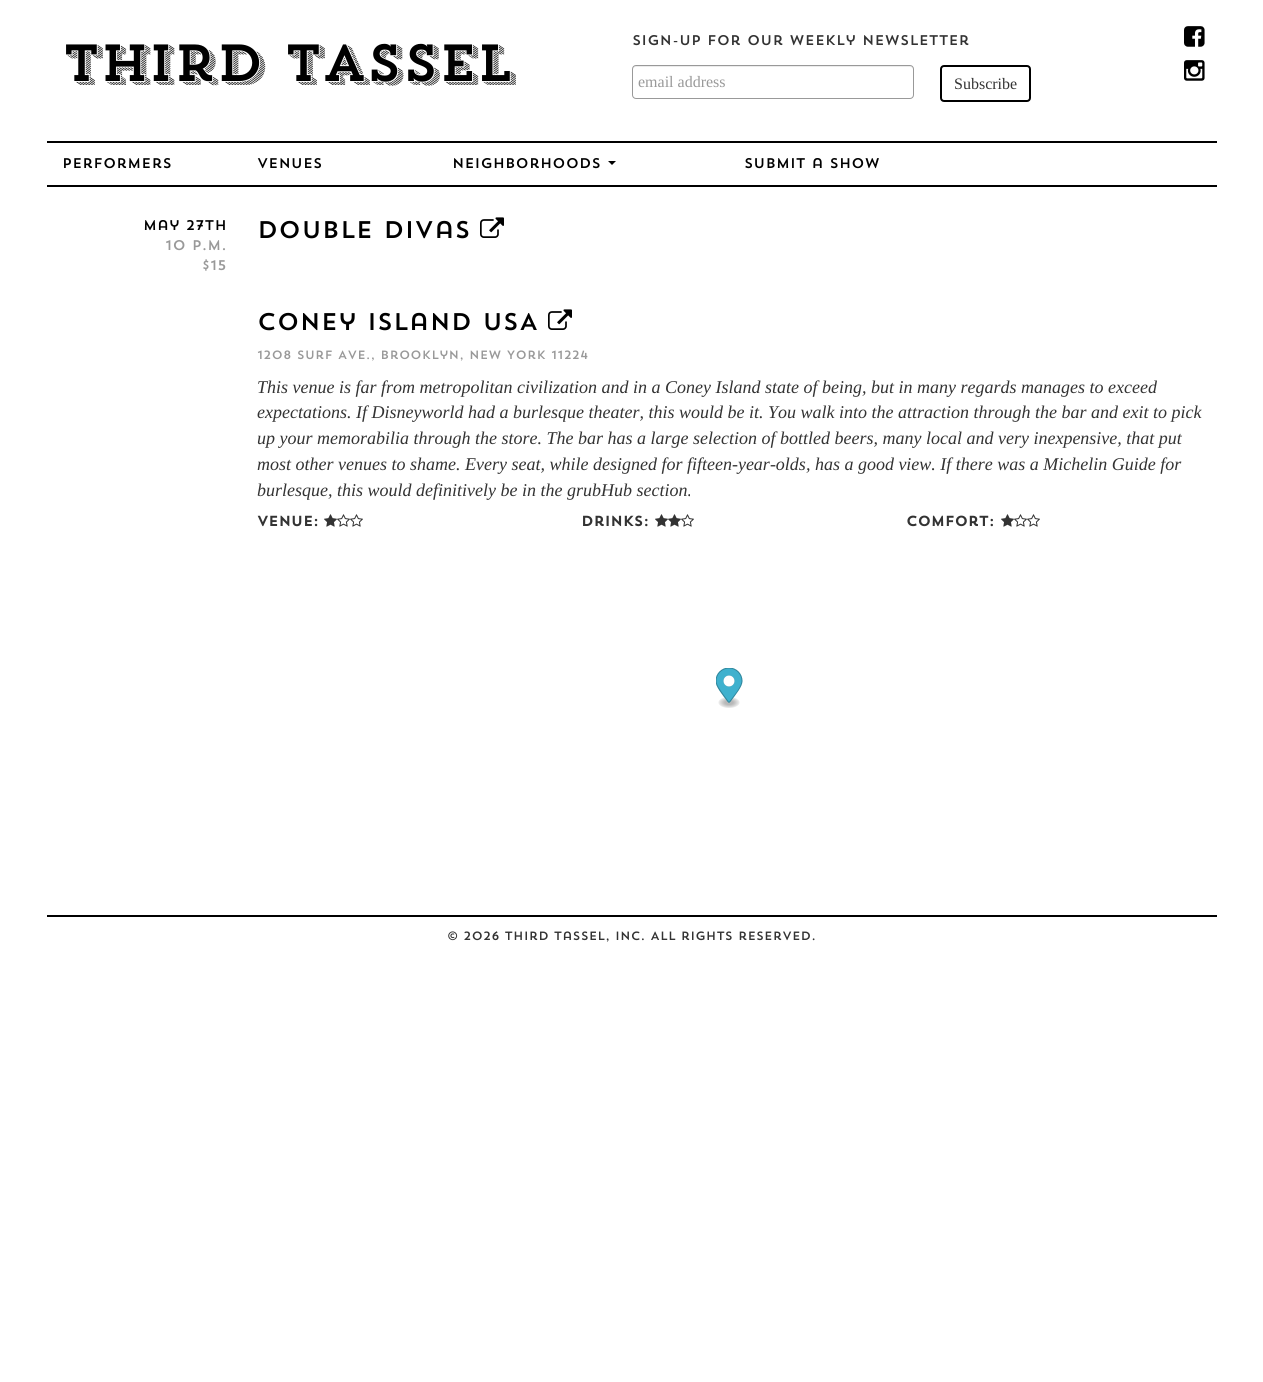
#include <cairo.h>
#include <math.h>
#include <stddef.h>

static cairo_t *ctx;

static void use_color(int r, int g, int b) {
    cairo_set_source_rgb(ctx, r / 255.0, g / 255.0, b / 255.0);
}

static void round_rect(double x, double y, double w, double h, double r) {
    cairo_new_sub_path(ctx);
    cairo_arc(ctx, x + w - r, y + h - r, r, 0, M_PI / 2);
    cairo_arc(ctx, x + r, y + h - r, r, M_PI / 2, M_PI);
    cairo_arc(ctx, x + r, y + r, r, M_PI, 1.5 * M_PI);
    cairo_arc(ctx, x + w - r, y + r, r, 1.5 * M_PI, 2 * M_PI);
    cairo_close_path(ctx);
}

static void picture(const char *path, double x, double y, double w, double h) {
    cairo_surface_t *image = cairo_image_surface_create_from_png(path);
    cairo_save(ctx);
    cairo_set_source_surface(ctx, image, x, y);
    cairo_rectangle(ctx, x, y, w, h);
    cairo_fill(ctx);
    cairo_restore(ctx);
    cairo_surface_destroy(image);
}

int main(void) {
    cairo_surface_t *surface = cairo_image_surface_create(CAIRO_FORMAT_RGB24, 1263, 1382);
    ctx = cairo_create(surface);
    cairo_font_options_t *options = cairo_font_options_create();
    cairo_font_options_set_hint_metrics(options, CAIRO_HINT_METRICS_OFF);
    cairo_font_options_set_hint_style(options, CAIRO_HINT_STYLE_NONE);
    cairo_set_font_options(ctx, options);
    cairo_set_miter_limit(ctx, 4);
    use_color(255, 255, 255);
    cairo_paint(ctx);
    cairo_select_font_face(ctx, "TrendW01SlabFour", CAIRO_FONT_SLANT_NORMAL, CAIRO_FONT_WEIGHT_NORMAL);
    cairo_set_font_size(ctx, 52);
    use_color(0, 0, 0);
    cairo_move_to(ctx, 62, 81);
    cairo_show_text(ctx, "Third Tassel");
    cairo_select_font_face(ctx, "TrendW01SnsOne", CAIRO_FONT_SLANT_NORMAL, CAIRO_FONT_WEIGHT_NORMAL);
    cairo_set_font_size(ctx, 14);
    use_color(51, 51, 51);
    cairo_move_to(ctx, 632, 45);
    cairo_show_text(ctx, "Sign-up for our Weekly Newsletter");
    use_color(236, 236, 236);
    cairo_new_path(ctx);
    cairo_move_to(ctx, 636, 67);
    cairo_line_to(ctx, 910, 67);
    cairo_curve_to(ctx, 912, 67, 913, 68, 913, 70);
    cairo_line_to(ctx, 913, 69);
    cairo_curve_to(ctx, 913, 67, 912, 66, 910, 66);
    cairo_line_to(ctx, 636, 66);
    cairo_curve_to(ctx, 634, 66, 633, 67, 633, 69);
    cairo_line_to(ctx, 633, 70);
    cairo_curve_to(ctx, 633, 68, 634, 67, 636, 67);
    cairo_close_path(ctx);
    cairo_fill(ctx);
    round_rect(632.5, 65.5, 281, 33, 3.5);
    use_color(153, 153, 153);
    cairo_set_line_width(ctx, 1);
    cairo_stroke(ctx);
    cairo_select_font_face(ctx, "Liberation Serif", CAIRO_FONT_SLANT_NORMAL, CAIRO_FONT_WEIGHT_NORMAL);
    cairo_set_font_size(ctx, 16);
    cairo_move_to(ctx, 638, 87);
    cairo_show_text(ctx, "email address");
    round_rect(941, 66, 89, 35, 3);
    use_color(0, 0, 0);
    cairo_set_line_width(ctx, 2);
    cairo_stroke(ctx);
    use_color(51, 51, 51);
    cairo_move_to(ctx, 954, 89);
    cairo_show_text(ctx, "Subscribe");
    picture("img1.png", 1184, 26, 21, 21);
    picture("img2.png", 1184, 60, 21, 21);
    use_color(0, 0, 0);
    cairo_rectangle(ctx, 47, 141, 1170, 2);
    cairo_fill(ctx);
    cairo_rectangle(ctx, 47, 185, 1170, 2);
    cairo_fill(ctx);
    cairo_select_font_face(ctx, "TrendW01SnsOne", CAIRO_FONT_SLANT_NORMAL, CAIRO_FONT_WEIGHT_NORMAL);
    cairo_set_font_size(ctx, 14);
    cairo_move_to(ctx, 62, 168);
    cairo_show_text(ctx, "Performers");
    cairo_move_to(ctx, 257, 168);
    cairo_show_text(ctx, "Venues");
    cairo_move_to(ctx, 452, 168);
    cairo_show_text(ctx, "Neighborhoods");
    cairo_new_path(ctx);
    cairo_move_to(ctx, 608, 161);
    cairo_line_to(ctx, 616, 161);
    cairo_line_to(ctx, 612, 165);
    cairo_close_path(ctx);
    cairo_fill(ctx);
    cairo_move_to(ctx, 744, 168);
    cairo_show_text(ctx, "Submit a Show");
    cairo_move_to(ctx, 143, 230);
    cairo_show_text(ctx, "May 27th");
    use_color(153, 153, 153);
    cairo_move_to(ctx, 165, 250);
    cairo_show_text(ctx, "10 p.m.");
    cairo_move_to(ctx, 202, 270);
    cairo_show_text(ctx, "$15");
    cairo_set_font_size(ctx, 24);
    use_color(0, 0, 0);
    cairo_move_to(ctx, 257, 238);
    cairo_show_text(ctx, "Double Divas");
    picture("img3.png", 480, 217, 24, 21);
    cairo_move_to(ctx, 257, 330);
    cairo_show_text(ctx, "Coney Island USA");
    picture("img3.png", 548, 309, 24, 21);
    cairo_set_font_size(ctx, 12);
    use_color(153, 153, 153);
    cairo_move_to(ctx, 257, 359);
    cairo_show_text(ctx, "1208 Surf Ave., Brooklyn, New York 11224");
    cairo_select_font_face(ctx, "Liberation Serif", CAIRO_FONT_SLANT_ITALIC, CAIRO_FONT_WEIGHT_NORMAL);
    cairo_set_font_size(ctx, 18);
    use_color(51, 51, 51);
    cairo_move_to(ctx, 257, 393);
    cairo_show_text(ctx, "This venue is far from metropolitan civilization and in a Coney Island state of being, but in many regards manages to exceed");
    cairo_move_to(ctx, 257, 418);
    cairo_show_text(ctx, "expectations. If Disneyworld had a burlesque theater, this would be it. You walk into the attraction through the bar and exit to pick");
    cairo_move_to(ctx, 257, 444);
    cairo_show_text(ctx, "up your memorabilia through the store. The bar has a large selection of bottled beers, many local and very inexpensive, that put");
    cairo_move_to(ctx, 257, 470);
    cairo_show_text(ctx, "most other venues to shame. Every seat, while designed for fifteen-year-olds, has a good view. If there was a Michelin Guide for");
    cairo_move_to(ctx, 257, 496);
    cairo_show_text(ctx, "burlesque, this would definitively be in the grubHub section.");
    cairo_select_font_face(ctx, "TrendW01SnsOne", CAIRO_FONT_SLANT_NORMAL, CAIRO_FONT_WEIGHT_BOLD);
    cairo_set_font_size(ctx, 14);
    cairo_move_to(ctx, 257, 526);
    cairo_show_text(ctx, "Venue:");
    picture("img4.png", 324, 514, 13, 13);
    picture("img5.png", 337, 514, 13, 13);
    picture("img5.png", 350, 514, 13, 13);
    cairo_move_to(ctx, 581, 526);
    cairo_show_text(ctx, "Drinks:");
    picture("img4.png", 655, 514, 13, 13);
    picture("img4.png", 668, 514, 13, 13);
    picture("img5.png", 681, 514, 13, 13);
    cairo_move_to(ctx, 906, 526);
    cairo_show_text(ctx, "Comfort:");
    picture("img4.png", 1001, 514, 13, 13);
    picture("img5.png", 1014, 514, 13, 13);
    picture("img5.png", 1027, 514, 13, 13);
    picture("img6.png", 716, 668, 27, 40);
    use_color(0, 0, 0);
    cairo_rectangle(ctx, 47, 915, 1170, 2);
    cairo_fill(ctx);
    cairo_select_font_face(ctx, "TrendW01SnsOne", CAIRO_FONT_SLANT_NORMAL, CAIRO_FONT_WEIGHT_NORMAL);
    cairo_set_font_size(ctx, 12);
    use_color(51, 51, 51);
    cairo_move_to(ctx, 447, 940);
    cairo_show_text(ctx, "© 2026 Third Tassel, Inc. All rights reserved.");
    cairo_surface_write_to_png(surface, "result.png");
    cairo_font_options_destroy(options);
    cairo_destroy(ctx);
    cairo_surface_destroy(surface);
    return 0;
}
